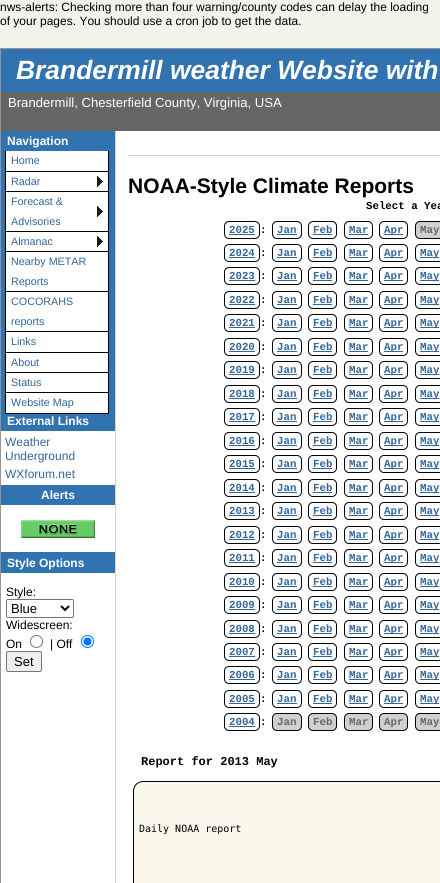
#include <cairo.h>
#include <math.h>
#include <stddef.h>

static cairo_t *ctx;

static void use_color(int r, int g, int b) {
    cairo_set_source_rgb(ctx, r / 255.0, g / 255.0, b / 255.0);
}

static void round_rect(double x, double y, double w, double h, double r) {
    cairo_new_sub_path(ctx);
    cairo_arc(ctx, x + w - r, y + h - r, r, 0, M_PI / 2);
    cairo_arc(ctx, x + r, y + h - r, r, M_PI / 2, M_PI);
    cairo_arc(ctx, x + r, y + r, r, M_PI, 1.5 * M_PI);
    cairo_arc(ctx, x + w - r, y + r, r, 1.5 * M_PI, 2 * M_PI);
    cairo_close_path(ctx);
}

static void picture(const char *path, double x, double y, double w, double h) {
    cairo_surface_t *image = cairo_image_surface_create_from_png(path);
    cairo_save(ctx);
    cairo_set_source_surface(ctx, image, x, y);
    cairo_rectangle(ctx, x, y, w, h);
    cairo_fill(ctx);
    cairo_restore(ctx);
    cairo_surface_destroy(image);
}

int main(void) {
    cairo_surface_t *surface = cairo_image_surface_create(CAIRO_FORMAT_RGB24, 440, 883);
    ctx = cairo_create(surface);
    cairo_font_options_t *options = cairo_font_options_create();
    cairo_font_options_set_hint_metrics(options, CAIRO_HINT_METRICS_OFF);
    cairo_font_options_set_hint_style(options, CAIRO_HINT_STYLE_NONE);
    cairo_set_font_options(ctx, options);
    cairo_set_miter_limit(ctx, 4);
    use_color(243, 242, 235);
    cairo_paint(ctx);
    cairo_select_font_face(ctx, "Liberation Sans", CAIRO_FONT_SLANT_NORMAL, CAIRO_FONT_WEIGHT_NORMAL);
    cairo_set_font_size(ctx, 12);
    use_color(0, 0, 0);
    cairo_move_to(ctx, 0, 11);
    cairo_show_text(ctx, "nws-alerts: Checking more than four warning/county codes can delay the loading");
    cairo_move_to(ctx, 0, 25);
    cairo_show_text(ctx, "of your pages. You should use a cron job to get the data.");
    use_color(255, 255, 255);
    cairo_rectangle(ctx, 1, 131, 439, 752);
    cairo_fill(ctx);
    cairo_rectangle(ctx, 0.5, 48.5, 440, 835);
    use_color(149, 149, 150);
    cairo_set_line_width(ctx, 1);
    cairo_stroke(ctx);
    use_color(49, 115, 177);
    cairo_rectangle(ctx, 1, 49, 439, 43);
    cairo_fill(ctx);
    cairo_select_font_face(ctx, "Liberation Sans", CAIRO_FONT_SLANT_ITALIC, CAIRO_FONT_WEIGHT_BOLD);
    cairo_set_font_size(ctx, 26.4);
    use_color(255, 255, 255);
    cairo_move_to(ctx, 16, 79);
    cairo_show_text(ctx, "Brandermill weather Website with");
    use_color(102, 102, 102);
    cairo_rectangle(ctx, 1, 92, 439, 39);
    cairo_fill(ctx);
    cairo_select_font_face(ctx, "Liberation Sans", CAIRO_FONT_SLANT_NORMAL, CAIRO_FONT_WEIGHT_NORMAL);
    cairo_set_font_size(ctx, 13.1);
    use_color(255, 255, 255);
    cairo_move_to(ctx, 8, 107);
    cairo_show_text(ctx, "Brandermill, Chesterfield County, Virginia, USA");
    use_color(49, 115, 177);
    cairo_rectangle(ctx, 1, 131, 114, 300);
    cairo_fill(ctx);
    cairo_select_font_face(ctx, "Liberation Sans", CAIRO_FONT_SLANT_NORMAL, CAIRO_FONT_WEIGHT_BOLD);
    cairo_set_font_size(ctx, 12);
    use_color(255, 255, 255);
    cairo_move_to(ctx, 7, 145);
    cairo_show_text(ctx, "Navigation");
    cairo_rectangle(ctx, 6, 151, 102, 20);
    cairo_fill(ctx);
    use_color(0, 0, 0);
    cairo_rectangle(ctx, 108, 151, 1, 263);
    cairo_fill(ctx);
    cairo_rectangle(ctx, 5, 171, 104, 1);
    cairo_fill(ctx);
    cairo_rectangle(ctx, 5, 151, 1, 21);
    cairo_fill(ctx);
    cairo_select_font_face(ctx, "Liberation Sans", CAIRO_FONT_SLANT_NORMAL, CAIRO_FONT_WEIGHT_NORMAL);
    cairo_set_font_size(ctx, 10.75);
    use_color(51, 102, 153);
    cairo_move_to(ctx, 11, 164);
    cairo_show_text(ctx, "Home");
    use_color(255, 255, 255);
    cairo_rectangle(ctx, 6, 172, 102, 19);
    cairo_fill(ctx);
    picture("img1.png", 97, 176, 6, 11);
    use_color(0, 0, 0);
    cairo_rectangle(ctx, 5, 191, 104, 1);
    cairo_fill(ctx);
    cairo_rectangle(ctx, 5, 172, 1, 20);
    cairo_fill(ctx);
    use_color(51, 102, 153);
    cairo_move_to(ctx, 11, 185);
    cairo_show_text(ctx, "Radar");
    use_color(255, 255, 255);
    cairo_rectangle(ctx, 6, 192, 102, 39);
    cairo_fill(ctx);
    picture("img1.png", 97, 206, 6, 11);
    use_color(0, 0, 0);
    cairo_rectangle(ctx, 5, 231, 104, 1);
    cairo_fill(ctx);
    cairo_rectangle(ctx, 5, 192, 1, 40);
    cairo_fill(ctx);
    use_color(51, 102, 153);
    cairo_move_to(ctx, 11, 205);
    cairo_show_text(ctx, "Forecast &");
    cairo_move_to(ctx, 11, 225);
    cairo_show_text(ctx, "Advisories");
    use_color(255, 255, 255);
    cairo_rectangle(ctx, 6, 232, 102, 19);
    cairo_fill(ctx);
    picture("img1.png", 97, 236, 6, 11);
    use_color(0, 0, 0);
    cairo_rectangle(ctx, 5, 251, 104, 1);
    cairo_fill(ctx);
    cairo_rectangle(ctx, 5, 232, 1, 20);
    cairo_fill(ctx);
    use_color(51, 102, 153);
    cairo_move_to(ctx, 11, 245);
    cairo_show_text(ctx, "Almanac");
    use_color(255, 255, 255);
    cairo_rectangle(ctx, 6, 252, 102, 39);
    cairo_fill(ctx);
    use_color(0, 0, 0);
    cairo_rectangle(ctx, 5, 291, 104, 1);
    cairo_fill(ctx);
    cairo_rectangle(ctx, 5, 252, 1, 40);
    cairo_fill(ctx);
    use_color(51, 102, 153);
    cairo_move_to(ctx, 11, 265);
    cairo_show_text(ctx, "Nearby METAR");
    cairo_move_to(ctx, 11, 285);
    cairo_show_text(ctx, "Reports");
    use_color(255, 255, 255);
    cairo_rectangle(ctx, 6, 292, 102, 39);
    cairo_fill(ctx);
    use_color(0, 0, 0);
    cairo_rectangle(ctx, 5, 331, 104, 1);
    cairo_fill(ctx);
    cairo_rectangle(ctx, 5, 292, 1, 40);
    cairo_fill(ctx);
    use_color(51, 102, 153);
    cairo_move_to(ctx, 11, 305);
    cairo_show_text(ctx, "COCORAHS");
    cairo_move_to(ctx, 11, 325);
    cairo_show_text(ctx, "reports");
    use_color(255, 255, 255);
    cairo_rectangle(ctx, 6, 332, 102, 20);
    cairo_fill(ctx);
    use_color(0, 0, 0);
    cairo_rectangle(ctx, 5, 352, 104, 1);
    cairo_fill(ctx);
    cairo_rectangle(ctx, 5, 332, 1, 21);
    cairo_fill(ctx);
    use_color(51, 102, 153);
    cairo_move_to(ctx, 11, 345);
    cairo_show_text(ctx, "Links");
    use_color(255, 255, 255);
    cairo_rectangle(ctx, 6, 353, 102, 19);
    cairo_fill(ctx);
    use_color(0, 0, 0);
    cairo_rectangle(ctx, 5, 372, 104, 1);
    cairo_fill(ctx);
    cairo_rectangle(ctx, 5, 353, 1, 20);
    cairo_fill(ctx);
    use_color(51, 102, 153);
    cairo_move_to(ctx, 11, 366);
    cairo_show_text(ctx, "About");
    use_color(255, 255, 255);
    cairo_rectangle(ctx, 6, 373, 102, 19);
    cairo_fill(ctx);
    use_color(0, 0, 0);
    cairo_rectangle(ctx, 5, 392, 104, 1);
    cairo_fill(ctx);
    cairo_rectangle(ctx, 5, 373, 1, 20);
    cairo_fill(ctx);
    use_color(51, 102, 153);
    cairo_move_to(ctx, 11, 386);
    cairo_show_text(ctx, "Status");
    use_color(255, 255, 255);
    cairo_rectangle(ctx, 6, 393, 102, 20);
    cairo_fill(ctx);
    use_color(0, 0, 0);
    cairo_rectangle(ctx, 5, 413, 104, 1);
    cairo_fill(ctx);
    cairo_rectangle(ctx, 5, 393, 1, 21);
    cairo_fill(ctx);
    use_color(51, 102, 153);
    cairo_move_to(ctx, 11, 406);
    cairo_show_text(ctx, "Website Map");
    cairo_select_font_face(ctx, "Liberation Sans", CAIRO_FONT_SLANT_NORMAL, CAIRO_FONT_WEIGHT_BOLD);
    cairo_set_font_size(ctx, 12);
    use_color(255, 255, 255);
    cairo_move_to(ctx, 7, 425);
    cairo_show_text(ctx, "External Links");
    cairo_select_font_face(ctx, "Liberation Sans", CAIRO_FONT_SLANT_NORMAL, CAIRO_FONT_WEIGHT_NORMAL);
    use_color(51, 102, 153);
    cairo_move_to(ctx, 5, 446);
    cairo_show_text(ctx, "Weather");
    cairo_move_to(ctx, 5, 460);
    cairo_show_text(ctx, "Underground");
    cairo_move_to(ctx, 5, 478);
    cairo_show_text(ctx, "WXforum.net");
    use_color(49, 115, 177);
    cairo_rectangle(ctx, 1, 485, 114, 20);
    cairo_fill(ctx);
    cairo_select_font_face(ctx, "Liberation Sans", CAIRO_FONT_SLANT_NORMAL, CAIRO_FONT_WEIGHT_BOLD);
    use_color(255, 255, 255);
    cairo_move_to(ctx, 41, 499);
    cairo_show_text(ctx, "Alerts");
    picture("img2.png", 21, 520, 74, 18);
    use_color(49, 115, 177);
    cairo_rectangle(ctx, 1, 552, 114, 21);
    cairo_fill(ctx);
    use_color(255, 255, 255);
    cairo_move_to(ctx, 7, 567);
    cairo_show_text(ctx, "Style Options");
    cairo_select_font_face(ctx, "Liberation Sans", CAIRO_FONT_SLANT_NORMAL, CAIRO_FONT_WEIGHT_NORMAL);
    use_color(0, 0, 0);
    cairo_move_to(ctx, 6, 596);
    cairo_show_text(ctx, "Style:");
    round_rect(6.5, 599.5, 67, 18, 1.5);
    use_color(118, 118, 118);
    cairo_stroke(ctx);
    cairo_new_path(ctx);
    cairo_move_to(ctx, 61, 606);
    cairo_line_to(ctx, 65, 610);
    cairo_line_to(ctx, 69, 606);
    use_color(0, 0, 0);
    cairo_set_line_width(ctx, 2);
    cairo_stroke(ctx);
    cairo_set_font_size(ctx, 13);
    cairo_move_to(ctx, 11, 613);
    cairo_show_text(ctx, "Blue");
    cairo_set_font_size(ctx, 12);
    cairo_move_to(ctx, 6, 629);
    cairo_show_text(ctx, "Widescreen:");
    cairo_move_to(ctx, 6, 648);
    cairo_show_text(ctx, "On");
    cairo_new_path(ctx);
    cairo_arc(ctx, 36.5, 641.5, 6, 0, 2 * M_PI);
    use_color(118, 118, 118);
    cairo_set_line_width(ctx, 1);
    cairo_stroke(ctx);
    use_color(0, 0, 0);
    cairo_move_to(ctx, 50, 648);
    cairo_show_text(ctx, "| Off");
    cairo_new_path(ctx);
    cairo_arc(ctx, 87.5, 641.5, 6, 0, 2 * M_PI);
    use_color(0, 117, 255);
    cairo_stroke(ctx);
    cairo_arc(ctx, 87.5, 641.5, 4, 0, 2 * M_PI);
    cairo_fill(ctx);
    use_color(239, 239, 239);
    round_rect(6.5, 651.5, 35, 20, 1.5);
    cairo_fill_preserve(ctx);
    use_color(118, 118, 118);
    cairo_stroke(ctx);
    cairo_set_font_size(ctx, 13);
    use_color(0, 0, 0);
    cairo_move_to(ctx, 14, 666);
    cairo_show_text(ctx, "Set");
    use_color(216, 210, 195);
    cairo_rectangle(ctx, 115, 131, 1, 752);
    cairo_fill(ctx);
    cairo_rectangle(ctx, 128, 155, 312, 1);
    cairo_fill(ctx);
    cairo_select_font_face(ctx, "Liberation Sans", CAIRO_FONT_SLANT_NORMAL, CAIRO_FONT_WEIGHT_BOLD);
    cairo_set_font_size(ctx, 21);
    use_color(0, 0, 0);
    cairo_move_to(ctx, 128, 193);
    cairo_show_text(ctx, "NOAA-Style Climate Reports");
    cairo_select_font_face(ctx, "Liberation Mono", CAIRO_FONT_SLANT_NORMAL, CAIRO_FONT_WEIGHT_BOLD);
    cairo_set_font_size(ctx, 10.75);
    cairo_move_to(ctx, 366, 209);
    cairo_show_text(ctx, "Select a Yea");
    round_rect(224.5, 221.5, 35, 17, 4.5);
    cairo_stroke(ctx);
    use_color(51, 102, 153);
    cairo_move_to(ctx, 229, 233);
    cairo_show_text(ctx, "2025");
    cairo_rectangle(ctx, 229, 234, 26, 1);
    cairo_fill(ctx);
    use_color(0, 0, 0);
    cairo_move_to(ctx, 260, 233);
    cairo_show_text(ctx, ":");
    round_rect(272.5, 221.5, 29, 17, 4.5);
    cairo_stroke(ctx);
    use_color(51, 102, 153);
    cairo_move_to(ctx, 277, 233);
    cairo_show_text(ctx, "Jan");
    cairo_rectangle(ctx, 277, 234, 20, 1);
    cairo_fill(ctx);
    round_rect(308.5, 221.5, 28, 17, 4.5);
    use_color(0, 0, 0);
    cairo_stroke(ctx);
    use_color(51, 102, 153);
    cairo_move_to(ctx, 313, 233);
    cairo_show_text(ctx, "Feb");
    cairo_rectangle(ctx, 313, 234, 19, 1);
    cairo_fill(ctx);
    round_rect(344.5, 221.5, 28, 17, 4.5);
    use_color(0, 0, 0);
    cairo_stroke(ctx);
    use_color(51, 102, 153);
    cairo_move_to(ctx, 349, 233);
    cairo_show_text(ctx, "Mar");
    cairo_rectangle(ctx, 349, 234, 19, 1);
    cairo_fill(ctx);
    round_rect(379.5, 221.5, 28, 17, 4.5);
    use_color(0, 0, 0);
    cairo_stroke(ctx);
    use_color(51, 102, 153);
    cairo_rectangle(ctx, 384, 234, 19, 1);
    cairo_fill(ctx);
    cairo_move_to(ctx, 384, 233);
    cairo_show_text(ctx, "Apr");
    use_color(208, 208, 208);
    round_rect(415.5, 221.5, 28, 17, 4.5);
    cairo_fill_preserve(ctx);
    use_color(0, 0, 0);
    cairo_stroke(ctx);
    use_color(102, 102, 102);
    cairo_move_to(ctx, 420, 233);
    cairo_show_text(ctx, "May");
    round_rect(224.5, 244.5, 35, 17, 4.5);
    use_color(0, 0, 0);
    cairo_stroke(ctx);
    use_color(51, 102, 153);
    cairo_move_to(ctx, 229, 256);
    cairo_show_text(ctx, "2024");
    cairo_rectangle(ctx, 229, 257, 26, 1);
    cairo_fill(ctx);
    use_color(0, 0, 0);
    cairo_move_to(ctx, 260, 256);
    cairo_show_text(ctx, ":");
    round_rect(272.5, 244.5, 29, 17, 4.5);
    cairo_stroke(ctx);
    use_color(51, 102, 153);
    cairo_move_to(ctx, 277, 256);
    cairo_show_text(ctx, "Jan");
    cairo_rectangle(ctx, 277, 257, 20, 1);
    cairo_fill(ctx);
    round_rect(308.5, 244.5, 28, 17, 4.5);
    use_color(0, 0, 0);
    cairo_stroke(ctx);
    use_color(51, 102, 153);
    cairo_move_to(ctx, 313, 256);
    cairo_show_text(ctx, "Feb");
    cairo_rectangle(ctx, 313, 257, 19, 1);
    cairo_fill(ctx);
    round_rect(344.5, 244.5, 28, 17, 4.5);
    use_color(0, 0, 0);
    cairo_stroke(ctx);
    use_color(51, 102, 153);
    cairo_move_to(ctx, 349, 256);
    cairo_show_text(ctx, "Mar");
    cairo_rectangle(ctx, 349, 257, 19, 1);
    cairo_fill(ctx);
    round_rect(379.5, 244.5, 28, 17, 4.5);
    use_color(0, 0, 0);
    cairo_stroke(ctx);
    use_color(51, 102, 153);
    cairo_rectangle(ctx, 384, 257, 19, 1);
    cairo_fill(ctx);
    cairo_move_to(ctx, 384, 256);
    cairo_show_text(ctx, "Apr");
    round_rect(415.5, 244.5, 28, 17, 4.5);
    use_color(0, 0, 0);
    cairo_stroke(ctx);
    use_color(51, 102, 153);
    cairo_rectangle(ctx, 420, 257, 19, 1);
    cairo_fill(ctx);
    cairo_move_to(ctx, 420, 256);
    cairo_show_text(ctx, "May");
    round_rect(224.5, 267.5, 35, 17, 4.5);
    use_color(0, 0, 0);
    cairo_stroke(ctx);
    use_color(51, 102, 153);
    cairo_move_to(ctx, 229, 279);
    cairo_show_text(ctx, "2023");
    cairo_rectangle(ctx, 229, 280, 26, 1);
    cairo_fill(ctx);
    use_color(0, 0, 0);
    cairo_move_to(ctx, 260, 279);
    cairo_show_text(ctx, ":");
    round_rect(272.5, 267.5, 29, 17, 4.5);
    cairo_stroke(ctx);
    use_color(51, 102, 153);
    cairo_move_to(ctx, 277, 279);
    cairo_show_text(ctx, "Jan");
    cairo_rectangle(ctx, 277, 280, 20, 1);
    cairo_fill(ctx);
    round_rect(308.5, 267.5, 28, 17, 4.5);
    use_color(0, 0, 0);
    cairo_stroke(ctx);
    use_color(51, 102, 153);
    cairo_move_to(ctx, 313, 279);
    cairo_show_text(ctx, "Feb");
    cairo_rectangle(ctx, 313, 280, 19, 1);
    cairo_fill(ctx);
    round_rect(344.5, 267.5, 28, 17, 4.5);
    use_color(0, 0, 0);
    cairo_stroke(ctx);
    use_color(51, 102, 153);
    cairo_move_to(ctx, 349, 279);
    cairo_show_text(ctx, "Mar");
    cairo_rectangle(ctx, 349, 280, 19, 1);
    cairo_fill(ctx);
    round_rect(379.5, 267.5, 28, 17, 4.5);
    use_color(0, 0, 0);
    cairo_stroke(ctx);
    use_color(51, 102, 153);
    cairo_rectangle(ctx, 384, 280, 19, 1);
    cairo_fill(ctx);
    cairo_move_to(ctx, 384, 279);
    cairo_show_text(ctx, "Apr");
    round_rect(415.5, 267.5, 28, 17, 4.5);
    use_color(0, 0, 0);
    cairo_stroke(ctx);
    use_color(51, 102, 153);
    cairo_rectangle(ctx, 420, 280, 19, 1);
    cairo_fill(ctx);
    cairo_move_to(ctx, 420, 279);
    cairo_show_text(ctx, "May");
    round_rect(224.5, 291.5, 35, 17, 4.5);
    use_color(0, 0, 0);
    cairo_stroke(ctx);
    use_color(51, 102, 153);
    cairo_move_to(ctx, 229, 303);
    cairo_show_text(ctx, "2022");
    cairo_rectangle(ctx, 229, 304, 26, 1);
    cairo_fill(ctx);
    use_color(0, 0, 0);
    cairo_move_to(ctx, 260, 303);
    cairo_show_text(ctx, ":");
    round_rect(272.5, 291.5, 29, 17, 4.5);
    cairo_stroke(ctx);
    use_color(51, 102, 153);
    cairo_move_to(ctx, 277, 303);
    cairo_show_text(ctx, "Jan");
    cairo_rectangle(ctx, 277, 304, 20, 1);
    cairo_fill(ctx);
    round_rect(308.5, 291.5, 28, 17, 4.5);
    use_color(0, 0, 0);
    cairo_stroke(ctx);
    use_color(51, 102, 153);
    cairo_move_to(ctx, 313, 303);
    cairo_show_text(ctx, "Feb");
    cairo_rectangle(ctx, 313, 304, 19, 1);
    cairo_fill(ctx);
    round_rect(344.5, 291.5, 28, 17, 4.5);
    use_color(0, 0, 0);
    cairo_stroke(ctx);
    use_color(51, 102, 153);
    cairo_move_to(ctx, 349, 303);
    cairo_show_text(ctx, "Mar");
    cairo_rectangle(ctx, 349, 304, 19, 1);
    cairo_fill(ctx);
    round_rect(379.5, 291.5, 28, 17, 4.5);
    use_color(0, 0, 0);
    cairo_stroke(ctx);
    use_color(51, 102, 153);
    cairo_rectangle(ctx, 384, 304, 19, 1);
    cairo_fill(ctx);
    cairo_move_to(ctx, 384, 303);
    cairo_show_text(ctx, "Apr");
    round_rect(415.5, 291.5, 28, 17, 4.5);
    use_color(0, 0, 0);
    cairo_stroke(ctx);
    use_color(51, 102, 153);
    cairo_rectangle(ctx, 420, 304, 19, 1);
    cairo_fill(ctx);
    cairo_move_to(ctx, 420, 303);
    cairo_show_text(ctx, "May");
    round_rect(224.5, 314.5, 35, 17, 4.5);
    use_color(0, 0, 0);
    cairo_stroke(ctx);
    use_color(51, 102, 153);
    cairo_move_to(ctx, 229, 326);
    cairo_show_text(ctx, "2021");
    cairo_rectangle(ctx, 229, 327, 26, 1);
    cairo_fill(ctx);
    use_color(0, 0, 0);
    cairo_move_to(ctx, 260, 326);
    cairo_show_text(ctx, ":");
    round_rect(272.5, 314.5, 29, 17, 4.5);
    cairo_stroke(ctx);
    use_color(51, 102, 153);
    cairo_move_to(ctx, 277, 326);
    cairo_show_text(ctx, "Jan");
    cairo_rectangle(ctx, 277, 327, 20, 1);
    cairo_fill(ctx);
    round_rect(308.5, 314.5, 28, 17, 4.5);
    use_color(0, 0, 0);
    cairo_stroke(ctx);
    use_color(51, 102, 153);
    cairo_move_to(ctx, 313, 326);
    cairo_show_text(ctx, "Feb");
    cairo_rectangle(ctx, 313, 327, 19, 1);
    cairo_fill(ctx);
    round_rect(344.5, 314.5, 28, 17, 4.5);
    use_color(0, 0, 0);
    cairo_stroke(ctx);
    use_color(51, 102, 153);
    cairo_move_to(ctx, 349, 326);
    cairo_show_text(ctx, "Mar");
    cairo_rectangle(ctx, 349, 327, 19, 1);
    cairo_fill(ctx);
    round_rect(379.5, 314.5, 28, 17, 4.5);
    use_color(0, 0, 0);
    cairo_stroke(ctx);
    use_color(51, 102, 153);
    cairo_rectangle(ctx, 384, 327, 19, 1);
    cairo_fill(ctx);
    cairo_move_to(ctx, 384, 326);
    cairo_show_text(ctx, "Apr");
    round_rect(415.5, 314.5, 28, 17, 4.5);
    use_color(0, 0, 0);
    cairo_stroke(ctx);
    use_color(51, 102, 153);
    cairo_rectangle(ctx, 420, 327, 19, 1);
    cairo_fill(ctx);
    cairo_move_to(ctx, 420, 326);
    cairo_show_text(ctx, "May");
    round_rect(224.5, 338.5, 35, 17, 4.5);
    use_color(0, 0, 0);
    cairo_stroke(ctx);
    use_color(51, 102, 153);
    cairo_move_to(ctx, 229, 350);
    cairo_show_text(ctx, "2020");
    cairo_rectangle(ctx, 229, 351, 26, 1);
    cairo_fill(ctx);
    use_color(0, 0, 0);
    cairo_move_to(ctx, 260, 350);
    cairo_show_text(ctx, ":");
    round_rect(272.5, 338.5, 29, 17, 4.5);
    cairo_stroke(ctx);
    use_color(51, 102, 153);
    cairo_move_to(ctx, 277, 350);
    cairo_show_text(ctx, "Jan");
    cairo_rectangle(ctx, 277, 351, 20, 1);
    cairo_fill(ctx);
    round_rect(308.5, 338.5, 28, 17, 4.5);
    use_color(0, 0, 0);
    cairo_stroke(ctx);
    use_color(51, 102, 153);
    cairo_move_to(ctx, 313, 350);
    cairo_show_text(ctx, "Feb");
    cairo_rectangle(ctx, 313, 351, 19, 1);
    cairo_fill(ctx);
    round_rect(344.5, 338.5, 28, 17, 4.5);
    use_color(0, 0, 0);
    cairo_stroke(ctx);
    use_color(51, 102, 153);
    cairo_move_to(ctx, 349, 350);
    cairo_show_text(ctx, "Mar");
    cairo_rectangle(ctx, 349, 351, 19, 1);
    cairo_fill(ctx);
    round_rect(379.5, 338.5, 28, 17, 4.5);
    use_color(0, 0, 0);
    cairo_stroke(ctx);
    use_color(51, 102, 153);
    cairo_rectangle(ctx, 384, 351, 19, 1);
    cairo_fill(ctx);
    cairo_move_to(ctx, 384, 350);
    cairo_show_text(ctx, "Apr");
    round_rect(415.5, 338.5, 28, 17, 4.5);
    use_color(0, 0, 0);
    cairo_stroke(ctx);
    use_color(51, 102, 153);
    cairo_rectangle(ctx, 420, 351, 19, 1);
    cairo_fill(ctx);
    cairo_move_to(ctx, 420, 350);
    cairo_show_text(ctx, "May");
    round_rect(224.5, 361.5, 35, 17, 4.5);
    use_color(0, 0, 0);
    cairo_stroke(ctx);
    use_color(51, 102, 153);
    cairo_move_to(ctx, 229, 373);
    cairo_show_text(ctx, "2019");
    cairo_rectangle(ctx, 229, 374, 26, 1);
    cairo_fill(ctx);
    use_color(0, 0, 0);
    cairo_move_to(ctx, 260, 373);
    cairo_show_text(ctx, ":");
    round_rect(272.5, 361.5, 29, 17, 4.5);
    cairo_stroke(ctx);
    use_color(51, 102, 153);
    cairo_move_to(ctx, 277, 373);
    cairo_show_text(ctx, "Jan");
    cairo_rectangle(ctx, 277, 374, 20, 1);
    cairo_fill(ctx);
    round_rect(308.5, 361.5, 28, 17, 4.5);
    use_color(0, 0, 0);
    cairo_stroke(ctx);
    use_color(51, 102, 153);
    cairo_move_to(ctx, 313, 373);
    cairo_show_text(ctx, "Feb");
    cairo_rectangle(ctx, 313, 374, 19, 1);
    cairo_fill(ctx);
    round_rect(344.5, 361.5, 28, 17, 4.5);
    use_color(0, 0, 0);
    cairo_stroke(ctx);
    use_color(51, 102, 153);
    cairo_move_to(ctx, 349, 373);
    cairo_show_text(ctx, "Mar");
    cairo_rectangle(ctx, 349, 374, 19, 1);
    cairo_fill(ctx);
    round_rect(379.5, 361.5, 28, 17, 4.5);
    use_color(0, 0, 0);
    cairo_stroke(ctx);
    use_color(51, 102, 153);
    cairo_rectangle(ctx, 384, 374, 19, 1);
    cairo_fill(ctx);
    cairo_move_to(ctx, 384, 373);
    cairo_show_text(ctx, "Apr");
    round_rect(415.5, 361.5, 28, 17, 4.5);
    use_color(0, 0, 0);
    cairo_stroke(ctx);
    use_color(51, 102, 153);
    cairo_rectangle(ctx, 420, 374, 19, 1);
    cairo_fill(ctx);
    cairo_move_to(ctx, 420, 373);
    cairo_show_text(ctx, "May");
    round_rect(224.5, 385.5, 35, 17, 4.5);
    use_color(0, 0, 0);
    cairo_stroke(ctx);
    use_color(51, 102, 153);
    cairo_move_to(ctx, 229, 397);
    cairo_show_text(ctx, "2018");
    cairo_rectangle(ctx, 229, 398, 26, 1);
    cairo_fill(ctx);
    use_color(0, 0, 0);
    cairo_move_to(ctx, 260, 397);
    cairo_show_text(ctx, ":");
    round_rect(272.5, 385.5, 29, 17, 4.5);
    cairo_stroke(ctx);
    use_color(51, 102, 153);
    cairo_move_to(ctx, 277, 397);
    cairo_show_text(ctx, "Jan");
    cairo_rectangle(ctx, 277, 398, 20, 1);
    cairo_fill(ctx);
    round_rect(308.5, 385.5, 28, 17, 4.5);
    use_color(0, 0, 0);
    cairo_stroke(ctx);
    use_color(51, 102, 153);
    cairo_move_to(ctx, 313, 397);
    cairo_show_text(ctx, "Feb");
    cairo_rectangle(ctx, 313, 398, 19, 1);
    cairo_fill(ctx);
    round_rect(344.5, 385.5, 28, 17, 4.5);
    use_color(0, 0, 0);
    cairo_stroke(ctx);
    use_color(51, 102, 153);
    cairo_move_to(ctx, 349, 397);
    cairo_show_text(ctx, "Mar");
    cairo_rectangle(ctx, 349, 398, 19, 1);
    cairo_fill(ctx);
    round_rect(379.5, 385.5, 28, 17, 4.5);
    use_color(0, 0, 0);
    cairo_stroke(ctx);
    use_color(51, 102, 153);
    cairo_rectangle(ctx, 384, 398, 19, 1);
    cairo_fill(ctx);
    cairo_move_to(ctx, 384, 397);
    cairo_show_text(ctx, "Apr");
    round_rect(415.5, 385.5, 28, 17, 4.5);
    use_color(0, 0, 0);
    cairo_stroke(ctx);
    use_color(51, 102, 153);
    cairo_rectangle(ctx, 420, 398, 19, 1);
    cairo_fill(ctx);
    cairo_move_to(ctx, 420, 397);
    cairo_show_text(ctx, "May");
    round_rect(224.5, 408.5, 35, 17, 4.5);
    use_color(0, 0, 0);
    cairo_stroke(ctx);
    use_color(51, 102, 153);
    cairo_move_to(ctx, 229, 420);
    cairo_show_text(ctx, "2017");
    cairo_rectangle(ctx, 229, 421, 26, 1);
    cairo_fill(ctx);
    use_color(0, 0, 0);
    cairo_move_to(ctx, 260, 420);
    cairo_show_text(ctx, ":");
    round_rect(272.5, 408.5, 29, 17, 4.5);
    cairo_stroke(ctx);
    use_color(51, 102, 153);
    cairo_move_to(ctx, 277, 420);
    cairo_show_text(ctx, "Jan");
    cairo_rectangle(ctx, 277, 421, 20, 1);
    cairo_fill(ctx);
    round_rect(308.5, 408.5, 28, 17, 4.5);
    use_color(0, 0, 0);
    cairo_stroke(ctx);
    use_color(51, 102, 153);
    cairo_move_to(ctx, 313, 420);
    cairo_show_text(ctx, "Feb");
    cairo_rectangle(ctx, 313, 421, 19, 1);
    cairo_fill(ctx);
    round_rect(344.5, 408.5, 28, 17, 4.5);
    use_color(0, 0, 0);
    cairo_stroke(ctx);
    use_color(51, 102, 153);
    cairo_move_to(ctx, 349, 420);
    cairo_show_text(ctx, "Mar");
    cairo_rectangle(ctx, 349, 421, 19, 1);
    cairo_fill(ctx);
    round_rect(379.5, 408.5, 28, 17, 4.5);
    use_color(0, 0, 0);
    cairo_stroke(ctx);
    use_color(51, 102, 153);
    cairo_rectangle(ctx, 384, 421, 19, 1);
    cairo_fill(ctx);
    cairo_move_to(ctx, 384, 420);
    cairo_show_text(ctx, "Apr");
    round_rect(415.5, 408.5, 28, 17, 4.5);
    use_color(0, 0, 0);
    cairo_stroke(ctx);
    use_color(51, 102, 153);
    cairo_rectangle(ctx, 420, 421, 19, 1);
    cairo_fill(ctx);
    cairo_move_to(ctx, 420, 420);
    cairo_show_text(ctx, "May");
    round_rect(224.5, 432.5, 35, 17, 4.5);
    use_color(0, 0, 0);
    cairo_stroke(ctx);
    use_color(51, 102, 153);
    cairo_move_to(ctx, 229, 444);
    cairo_show_text(ctx, "2016");
    cairo_rectangle(ctx, 229, 445, 26, 1);
    cairo_fill(ctx);
    use_color(0, 0, 0);
    cairo_move_to(ctx, 260, 444);
    cairo_show_text(ctx, ":");
    round_rect(272.5, 432.5, 29, 17, 4.5);
    cairo_stroke(ctx);
    use_color(51, 102, 153);
    cairo_move_to(ctx, 277, 444);
    cairo_show_text(ctx, "Jan");
    cairo_rectangle(ctx, 277, 445, 20, 1);
    cairo_fill(ctx);
    round_rect(308.5, 432.5, 28, 17, 4.5);
    use_color(0, 0, 0);
    cairo_stroke(ctx);
    use_color(51, 102, 153);
    cairo_move_to(ctx, 313, 444);
    cairo_show_text(ctx, "Feb");
    cairo_rectangle(ctx, 313, 445, 19, 1);
    cairo_fill(ctx);
    round_rect(344.5, 432.5, 28, 17, 4.5);
    use_color(0, 0, 0);
    cairo_stroke(ctx);
    use_color(51, 102, 153);
    cairo_move_to(ctx, 349, 444);
    cairo_show_text(ctx, "Mar");
    cairo_rectangle(ctx, 349, 445, 19, 1);
    cairo_fill(ctx);
    round_rect(379.5, 432.5, 28, 17, 4.5);
    use_color(0, 0, 0);
    cairo_stroke(ctx);
    use_color(51, 102, 153);
    cairo_rectangle(ctx, 384, 445, 19, 1);
    cairo_fill(ctx);
    cairo_move_to(ctx, 384, 444);
    cairo_show_text(ctx, "Apr");
    round_rect(415.5, 432.5, 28, 17, 4.5);
    use_color(0, 0, 0);
    cairo_stroke(ctx);
    use_color(51, 102, 153);
    cairo_rectangle(ctx, 420, 445, 19, 1);
    cairo_fill(ctx);
    cairo_move_to(ctx, 420, 444);
    cairo_show_text(ctx, "May");
    round_rect(224.5, 455.5, 35, 17, 4.5);
    use_color(0, 0, 0);
    cairo_stroke(ctx);
    use_color(51, 102, 153);
    cairo_move_to(ctx, 229, 467);
    cairo_show_text(ctx, "2015");
    cairo_rectangle(ctx, 229, 468, 26, 1);
    cairo_fill(ctx);
    use_color(0, 0, 0);
    cairo_move_to(ctx, 260, 467);
    cairo_show_text(ctx, ":");
    round_rect(272.5, 455.5, 29, 17, 4.5);
    cairo_stroke(ctx);
    use_color(51, 102, 153);
    cairo_move_to(ctx, 277, 467);
    cairo_show_text(ctx, "Jan");
    cairo_rectangle(ctx, 277, 468, 20, 1);
    cairo_fill(ctx);
    round_rect(308.5, 455.5, 28, 17, 4.5);
    use_color(0, 0, 0);
    cairo_stroke(ctx);
    use_color(51, 102, 153);
    cairo_move_to(ctx, 313, 467);
    cairo_show_text(ctx, "Feb");
    cairo_rectangle(ctx, 313, 468, 19, 1);
    cairo_fill(ctx);
    round_rect(344.5, 455.5, 28, 17, 4.5);
    use_color(0, 0, 0);
    cairo_stroke(ctx);
    use_color(51, 102, 153);
    cairo_move_to(ctx, 349, 467);
    cairo_show_text(ctx, "Mar");
    cairo_rectangle(ctx, 349, 468, 19, 1);
    cairo_fill(ctx);
    round_rect(379.5, 455.5, 28, 17, 4.5);
    use_color(0, 0, 0);
    cairo_stroke(ctx);
    use_color(51, 102, 153);
    cairo_rectangle(ctx, 384, 468, 19, 1);
    cairo_fill(ctx);
    cairo_move_to(ctx, 384, 467);
    cairo_show_text(ctx, "Apr");
    round_rect(415.5, 455.5, 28, 17, 4.5);
    use_color(0, 0, 0);
    cairo_stroke(ctx);
    use_color(51, 102, 153);
    cairo_rectangle(ctx, 420, 468, 19, 1);
    cairo_fill(ctx);
    cairo_move_to(ctx, 420, 467);
    cairo_show_text(ctx, "May");
    round_rect(224.5, 479.5, 35, 17, 4.5);
    use_color(0, 0, 0);
    cairo_stroke(ctx);
    use_color(51, 102, 153);
    cairo_move_to(ctx, 229, 491);
    cairo_show_text(ctx, "2014");
    cairo_rectangle(ctx, 229, 492, 26, 1);
    cairo_fill(ctx);
    use_color(0, 0, 0);
    cairo_move_to(ctx, 260, 491);
    cairo_show_text(ctx, ":");
    round_rect(272.5, 479.5, 29, 17, 4.5);
    cairo_stroke(ctx);
    use_color(51, 102, 153);
    cairo_move_to(ctx, 277, 491);
    cairo_show_text(ctx, "Jan");
    cairo_rectangle(ctx, 277, 492, 20, 1);
    cairo_fill(ctx);
    round_rect(308.5, 479.5, 28, 17, 4.5);
    use_color(0, 0, 0);
    cairo_stroke(ctx);
    use_color(51, 102, 153);
    cairo_move_to(ctx, 313, 491);
    cairo_show_text(ctx, "Feb");
    cairo_rectangle(ctx, 313, 492, 19, 1);
    cairo_fill(ctx);
    round_rect(344.5, 479.5, 28, 17, 4.5);
    use_color(0, 0, 0);
    cairo_stroke(ctx);
    use_color(51, 102, 153);
    cairo_move_to(ctx, 349, 491);
    cairo_show_text(ctx, "Mar");
    cairo_rectangle(ctx, 349, 492, 19, 1);
    cairo_fill(ctx);
    round_rect(379.5, 479.5, 28, 17, 4.5);
    use_color(0, 0, 0);
    cairo_stroke(ctx);
    use_color(51, 102, 153);
    cairo_rectangle(ctx, 384, 492, 19, 1);
    cairo_fill(ctx);
    cairo_move_to(ctx, 384, 491);
    cairo_show_text(ctx, "Apr");
    round_rect(415.5, 479.5, 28, 17, 4.5);
    use_color(0, 0, 0);
    cairo_stroke(ctx);
    use_color(51, 102, 153);
    cairo_rectangle(ctx, 420, 492, 19, 1);
    cairo_fill(ctx);
    cairo_move_to(ctx, 420, 491);
    cairo_show_text(ctx, "May");
    round_rect(224.5, 502.5, 35, 17, 4.5);
    use_color(0, 0, 0);
    cairo_stroke(ctx);
    use_color(51, 102, 153);
    cairo_move_to(ctx, 229, 514);
    cairo_show_text(ctx, "2013");
    cairo_rectangle(ctx, 229, 515, 26, 1);
    cairo_fill(ctx);
    use_color(0, 0, 0);
    cairo_move_to(ctx, 260, 514);
    cairo_show_text(ctx, ":");
    round_rect(272.5, 502.5, 29, 17, 4.5);
    cairo_stroke(ctx);
    use_color(51, 102, 153);
    cairo_move_to(ctx, 277, 514);
    cairo_show_text(ctx, "Jan");
    cairo_rectangle(ctx, 277, 515, 20, 1);
    cairo_fill(ctx);
    round_rect(308.5, 502.5, 28, 17, 4.5);
    use_color(0, 0, 0);
    cairo_stroke(ctx);
    use_color(51, 102, 153);
    cairo_move_to(ctx, 313, 514);
    cairo_show_text(ctx, "Feb");
    cairo_rectangle(ctx, 313, 515, 19, 1);
    cairo_fill(ctx);
    round_rect(344.5, 502.5, 28, 17, 4.5);
    use_color(0, 0, 0);
    cairo_stroke(ctx);
    use_color(51, 102, 153);
    cairo_move_to(ctx, 349, 514);
    cairo_show_text(ctx, "Mar");
    cairo_rectangle(ctx, 349, 515, 19, 1);
    cairo_fill(ctx);
    round_rect(379.5, 502.5, 28, 17, 4.5);
    use_color(0, 0, 0);
    cairo_stroke(ctx);
    use_color(51, 102, 153);
    cairo_rectangle(ctx, 384, 515, 19, 1);
    cairo_fill(ctx);
    cairo_move_to(ctx, 384, 514);
    cairo_show_text(ctx, "Apr");
    round_rect(415.5, 502.5, 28, 17, 4.5);
    use_color(0, 0, 0);
    cairo_stroke(ctx);
    use_color(51, 102, 153);
    cairo_rectangle(ctx, 420, 515, 19, 1);
    cairo_fill(ctx);
    cairo_move_to(ctx, 420, 514);
    cairo_show_text(ctx, "May");
    round_rect(224.5, 526.5, 35, 17, 4.5);
    use_color(0, 0, 0);
    cairo_stroke(ctx);
    use_color(51, 102, 153);
    cairo_move_to(ctx, 229, 538);
    cairo_show_text(ctx, "2012");
    cairo_rectangle(ctx, 229, 539, 26, 1);
    cairo_fill(ctx);
    use_color(0, 0, 0);
    cairo_move_to(ctx, 260, 538);
    cairo_show_text(ctx, ":");
    round_rect(272.5, 526.5, 29, 17, 4.5);
    cairo_stroke(ctx);
    use_color(51, 102, 153);
    cairo_move_to(ctx, 277, 538);
    cairo_show_text(ctx, "Jan");
    cairo_rectangle(ctx, 277, 539, 20, 1);
    cairo_fill(ctx);
    round_rect(308.5, 526.5, 28, 17, 4.5);
    use_color(0, 0, 0);
    cairo_stroke(ctx);
    use_color(51, 102, 153);
    cairo_move_to(ctx, 313, 538);
    cairo_show_text(ctx, "Feb");
    cairo_rectangle(ctx, 313, 539, 19, 1);
    cairo_fill(ctx);
    round_rect(344.5, 526.5, 28, 17, 4.5);
    use_color(0, 0, 0);
    cairo_stroke(ctx);
    use_color(51, 102, 153);
    cairo_move_to(ctx, 349, 538);
    cairo_show_text(ctx, "Mar");
    cairo_rectangle(ctx, 349, 539, 19, 1);
    cairo_fill(ctx);
    round_rect(379.5, 526.5, 28, 17, 4.5);
    use_color(0, 0, 0);
    cairo_stroke(ctx);
    use_color(51, 102, 153);
    cairo_rectangle(ctx, 384, 539, 19, 1);
    cairo_fill(ctx);
    cairo_move_to(ctx, 384, 538);
    cairo_show_text(ctx, "Apr");
    round_rect(415.5, 526.5, 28, 17, 4.5);
    use_color(0, 0, 0);
    cairo_stroke(ctx);
    use_color(51, 102, 153);
    cairo_rectangle(ctx, 420, 539, 19, 1);
    cairo_fill(ctx);
    cairo_move_to(ctx, 420, 538);
    cairo_show_text(ctx, "May");
    round_rect(224.5, 549.5, 35, 17, 4.5);
    use_color(0, 0, 0);
    cairo_stroke(ctx);
    use_color(51, 102, 153);
    cairo_move_to(ctx, 229, 561);
    cairo_show_text(ctx, "2011");
    cairo_rectangle(ctx, 229, 562, 26, 1);
    cairo_fill(ctx);
    use_color(0, 0, 0);
    cairo_move_to(ctx, 260, 561);
    cairo_show_text(ctx, ":");
    round_rect(272.5, 549.5, 29, 17, 4.5);
    cairo_stroke(ctx);
    use_color(51, 102, 153);
    cairo_move_to(ctx, 277, 561);
    cairo_show_text(ctx, "Jan");
    cairo_rectangle(ctx, 277, 562, 20, 1);
    cairo_fill(ctx);
    round_rect(308.5, 549.5, 28, 17, 4.5);
    use_color(0, 0, 0);
    cairo_stroke(ctx);
    use_color(51, 102, 153);
    cairo_move_to(ctx, 313, 561);
    cairo_show_text(ctx, "Feb");
    cairo_rectangle(ctx, 313, 562, 19, 1);
    cairo_fill(ctx);
    round_rect(344.5, 549.5, 28, 17, 4.5);
    use_color(0, 0, 0);
    cairo_stroke(ctx);
    use_color(51, 102, 153);
    cairo_move_to(ctx, 349, 561);
    cairo_show_text(ctx, "Mar");
    cairo_rectangle(ctx, 349, 562, 19, 1);
    cairo_fill(ctx);
    round_rect(379.5, 549.5, 28, 17, 4.5);
    use_color(0, 0, 0);
    cairo_stroke(ctx);
    use_color(51, 102, 153);
    cairo_rectangle(ctx, 384, 562, 19, 1);
    cairo_fill(ctx);
    cairo_move_to(ctx, 384, 561);
    cairo_show_text(ctx, "Apr");
    round_rect(415.5, 549.5, 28, 17, 4.5);
    use_color(0, 0, 0);
    cairo_stroke(ctx);
    use_color(51, 102, 153);
    cairo_rectangle(ctx, 420, 562, 19, 1);
    cairo_fill(ctx);
    cairo_move_to(ctx, 420, 561);
    cairo_show_text(ctx, "May");
    round_rect(224.5, 573.5, 35, 17, 4.5);
    use_color(0, 0, 0);
    cairo_stroke(ctx);
    use_color(51, 102, 153);
    cairo_move_to(ctx, 229, 585);
    cairo_show_text(ctx, "2010");
    cairo_rectangle(ctx, 229, 586, 26, 1);
    cairo_fill(ctx);
    use_color(0, 0, 0);
    cairo_move_to(ctx, 260, 585);
    cairo_show_text(ctx, ":");
    round_rect(272.5, 573.5, 29, 17, 4.5);
    cairo_stroke(ctx);
    use_color(51, 102, 153);
    cairo_move_to(ctx, 277, 585);
    cairo_show_text(ctx, "Jan");
    cairo_rectangle(ctx, 277, 586, 20, 1);
    cairo_fill(ctx);
    round_rect(308.5, 573.5, 28, 17, 4.5);
    use_color(0, 0, 0);
    cairo_stroke(ctx);
    use_color(51, 102, 153);
    cairo_move_to(ctx, 313, 585);
    cairo_show_text(ctx, "Feb");
    cairo_rectangle(ctx, 313, 586, 19, 1);
    cairo_fill(ctx);
    round_rect(344.5, 573.5, 28, 17, 4.5);
    use_color(0, 0, 0);
    cairo_stroke(ctx);
    use_color(51, 102, 153);
    cairo_move_to(ctx, 349, 585);
    cairo_show_text(ctx, "Mar");
    cairo_rectangle(ctx, 349, 586, 19, 1);
    cairo_fill(ctx);
    round_rect(379.5, 573.5, 28, 17, 4.5);
    use_color(0, 0, 0);
    cairo_stroke(ctx);
    use_color(51, 102, 153);
    cairo_rectangle(ctx, 384, 586, 19, 1);
    cairo_fill(ctx);
    cairo_move_to(ctx, 384, 585);
    cairo_show_text(ctx, "Apr");
    round_rect(415.5, 573.5, 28, 17, 4.5);
    use_color(0, 0, 0);
    cairo_stroke(ctx);
    use_color(51, 102, 153);
    cairo_rectangle(ctx, 420, 586, 19, 1);
    cairo_fill(ctx);
    cairo_move_to(ctx, 420, 585);
    cairo_show_text(ctx, "May");
    round_rect(224.5, 596.5, 35, 17, 4.5);
    use_color(0, 0, 0);
    cairo_stroke(ctx);
    use_color(51, 102, 153);
    cairo_move_to(ctx, 229, 608);
    cairo_show_text(ctx, "2009");
    cairo_rectangle(ctx, 229, 609, 26, 1);
    cairo_fill(ctx);
    use_color(0, 0, 0);
    cairo_move_to(ctx, 260, 608);
    cairo_show_text(ctx, ":");
    round_rect(272.5, 596.5, 29, 17, 4.5);
    cairo_stroke(ctx);
    use_color(51, 102, 153);
    cairo_move_to(ctx, 277, 608);
    cairo_show_text(ctx, "Jan");
    cairo_rectangle(ctx, 277, 609, 20, 1);
    cairo_fill(ctx);
    round_rect(308.5, 596.5, 28, 17, 4.5);
    use_color(0, 0, 0);
    cairo_stroke(ctx);
    use_color(51, 102, 153);
    cairo_move_to(ctx, 313, 608);
    cairo_show_text(ctx, "Feb");
    cairo_rectangle(ctx, 313, 609, 19, 1);
    cairo_fill(ctx);
    round_rect(344.5, 596.5, 28, 17, 4.5);
    use_color(0, 0, 0);
    cairo_stroke(ctx);
    use_color(51, 102, 153);
    cairo_move_to(ctx, 349, 608);
    cairo_show_text(ctx, "Mar");
    cairo_rectangle(ctx, 349, 609, 19, 1);
    cairo_fill(ctx);
    round_rect(379.5, 596.5, 28, 17, 4.5);
    use_color(0, 0, 0);
    cairo_stroke(ctx);
    use_color(51, 102, 153);
    cairo_rectangle(ctx, 384, 609, 19, 1);
    cairo_fill(ctx);
    cairo_move_to(ctx, 384, 608);
    cairo_show_text(ctx, "Apr");
    round_rect(415.5, 596.5, 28, 17, 4.5);
    use_color(0, 0, 0);
    cairo_stroke(ctx);
    use_color(51, 102, 153);
    cairo_rectangle(ctx, 420, 609, 19, 1);
    cairo_fill(ctx);
    cairo_move_to(ctx, 420, 608);
    cairo_show_text(ctx, "May");
    round_rect(224.5, 620.5, 35, 17, 4.5);
    use_color(0, 0, 0);
    cairo_stroke(ctx);
    use_color(51, 102, 153);
    cairo_move_to(ctx, 229, 632);
    cairo_show_text(ctx, "2008");
    cairo_rectangle(ctx, 229, 633, 26, 1);
    cairo_fill(ctx);
    use_color(0, 0, 0);
    cairo_move_to(ctx, 260, 632);
    cairo_show_text(ctx, ":");
    round_rect(272.5, 620.5, 29, 17, 4.5);
    cairo_stroke(ctx);
    use_color(51, 102, 153);
    cairo_move_to(ctx, 277, 632);
    cairo_show_text(ctx, "Jan");
    cairo_rectangle(ctx, 277, 633, 20, 1);
    cairo_fill(ctx);
    round_rect(308.5, 620.5, 28, 17, 4.5);
    use_color(0, 0, 0);
    cairo_stroke(ctx);
    use_color(51, 102, 153);
    cairo_move_to(ctx, 313, 632);
    cairo_show_text(ctx, "Feb");
    cairo_rectangle(ctx, 313, 633, 19, 1);
    cairo_fill(ctx);
    round_rect(344.5, 620.5, 28, 17, 4.5);
    use_color(0, 0, 0);
    cairo_stroke(ctx);
    use_color(51, 102, 153);
    cairo_move_to(ctx, 349, 632);
    cairo_show_text(ctx, "Mar");
    cairo_rectangle(ctx, 349, 633, 19, 1);
    cairo_fill(ctx);
    round_rect(379.5, 620.5, 28, 17, 4.5);
    use_color(0, 0, 0);
    cairo_stroke(ctx);
    use_color(51, 102, 153);
    cairo_rectangle(ctx, 384, 633, 19, 1);
    cairo_fill(ctx);
    cairo_move_to(ctx, 384, 632);
    cairo_show_text(ctx, "Apr");
    round_rect(415.5, 620.5, 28, 17, 4.5);
    use_color(0, 0, 0);
    cairo_stroke(ctx);
    use_color(51, 102, 153);
    cairo_rectangle(ctx, 420, 633, 19, 1);
    cairo_fill(ctx);
    cairo_move_to(ctx, 420, 632);
    cairo_show_text(ctx, "May");
    round_rect(224.5, 643.5, 35, 17, 4.5);
    use_color(0, 0, 0);
    cairo_stroke(ctx);
    use_color(51, 102, 153);
    cairo_move_to(ctx, 229, 655);
    cairo_show_text(ctx, "2007");
    cairo_rectangle(ctx, 229, 656, 26, 1);
    cairo_fill(ctx);
    use_color(0, 0, 0);
    cairo_move_to(ctx, 260, 655);
    cairo_show_text(ctx, ":");
    round_rect(272.5, 643.5, 29, 17, 4.5);
    cairo_stroke(ctx);
    use_color(51, 102, 153);
    cairo_move_to(ctx, 277, 655);
    cairo_show_text(ctx, "Jan");
    cairo_rectangle(ctx, 277, 656, 20, 1);
    cairo_fill(ctx);
    round_rect(308.5, 643.5, 28, 17, 4.5);
    use_color(0, 0, 0);
    cairo_stroke(ctx);
    use_color(51, 102, 153);
    cairo_move_to(ctx, 313, 655);
    cairo_show_text(ctx, "Feb");
    cairo_rectangle(ctx, 313, 656, 19, 1);
    cairo_fill(ctx);
    round_rect(344.5, 643.5, 28, 17, 4.5);
    use_color(0, 0, 0);
    cairo_stroke(ctx);
    use_color(51, 102, 153);
    cairo_move_to(ctx, 349, 655);
    cairo_show_text(ctx, "Mar");
    cairo_rectangle(ctx, 349, 656, 19, 1);
    cairo_fill(ctx);
    round_rect(379.5, 643.5, 28, 17, 4.5);
    use_color(0, 0, 0);
    cairo_stroke(ctx);
    use_color(51, 102, 153);
    cairo_rectangle(ctx, 384, 656, 19, 1);
    cairo_fill(ctx);
    cairo_move_to(ctx, 384, 655);
    cairo_show_text(ctx, "Apr");
    round_rect(415.5, 643.5, 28, 17, 4.5);
    use_color(0, 0, 0);
    cairo_stroke(ctx);
    use_color(51, 102, 153);
    cairo_rectangle(ctx, 420, 656, 19, 1);
    cairo_fill(ctx);
    cairo_move_to(ctx, 420, 655);
    cairo_show_text(ctx, "May");
    round_rect(224.5, 666.5, 35, 17, 4.5);
    use_color(0, 0, 0);
    cairo_stroke(ctx);
    use_color(51, 102, 153);
    cairo_move_to(ctx, 229, 678);
    cairo_show_text(ctx, "2006");
    cairo_rectangle(ctx, 229, 679, 26, 1);
    cairo_fill(ctx);
    use_color(0, 0, 0);
    cairo_move_to(ctx, 260, 678);
    cairo_show_text(ctx, ":");
    round_rect(272.5, 666.5, 29, 17, 4.5);
    cairo_stroke(ctx);
    use_color(51, 102, 153);
    cairo_move_to(ctx, 277, 678);
    cairo_show_text(ctx, "Jan");
    cairo_rectangle(ctx, 277, 679, 20, 1);
    cairo_fill(ctx);
    round_rect(308.5, 666.5, 28, 17, 4.5);
    use_color(0, 0, 0);
    cairo_stroke(ctx);
    use_color(51, 102, 153);
    cairo_move_to(ctx, 313, 678);
    cairo_show_text(ctx, "Feb");
    cairo_rectangle(ctx, 313, 679, 19, 1);
    cairo_fill(ctx);
    round_rect(344.5, 666.5, 28, 17, 4.5);
    use_color(0, 0, 0);
    cairo_stroke(ctx);
    use_color(51, 102, 153);
    cairo_move_to(ctx, 349, 678);
    cairo_show_text(ctx, "Mar");
    cairo_rectangle(ctx, 349, 679, 19, 1);
    cairo_fill(ctx);
    round_rect(379.5, 666.5, 28, 17, 4.5);
    use_color(0, 0, 0);
    cairo_stroke(ctx);
    use_color(51, 102, 153);
    cairo_rectangle(ctx, 384, 679, 19, 1);
    cairo_fill(ctx);
    cairo_move_to(ctx, 384, 678);
    cairo_show_text(ctx, "Apr");
    round_rect(415.5, 666.5, 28, 17, 4.5);
    use_color(0, 0, 0);
    cairo_stroke(ctx);
    use_color(51, 102, 153);
    cairo_rectangle(ctx, 420, 679, 19, 1);
    cairo_fill(ctx);
    cairo_move_to(ctx, 420, 678);
    cairo_show_text(ctx, "May");
    round_rect(224.5, 690.5, 35, 17, 4.5);
    use_color(0, 0, 0);
    cairo_stroke(ctx);
    use_color(51, 102, 153);
    cairo_move_to(ctx, 229, 702);
    cairo_show_text(ctx, "2005");
    cairo_rectangle(ctx, 229, 703, 26, 1);
    cairo_fill(ctx);
    use_color(0, 0, 0);
    cairo_move_to(ctx, 260, 702);
    cairo_show_text(ctx, ":");
    round_rect(272.5, 690.5, 29, 17, 4.5);
    cairo_stroke(ctx);
    use_color(51, 102, 153);
    cairo_move_to(ctx, 277, 702);
    cairo_show_text(ctx, "Jan");
    cairo_rectangle(ctx, 277, 703, 20, 1);
    cairo_fill(ctx);
    round_rect(308.5, 690.5, 28, 17, 4.5);
    use_color(0, 0, 0);
    cairo_stroke(ctx);
    use_color(51, 102, 153);
    cairo_move_to(ctx, 313, 702);
    cairo_show_text(ctx, "Feb");
    cairo_rectangle(ctx, 313, 703, 19, 1);
    cairo_fill(ctx);
    round_rect(344.5, 690.5, 28, 17, 4.5);
    use_color(0, 0, 0);
    cairo_stroke(ctx);
    use_color(51, 102, 153);
    cairo_move_to(ctx, 349, 702);
    cairo_show_text(ctx, "Mar");
    cairo_rectangle(ctx, 349, 703, 19, 1);
    cairo_fill(ctx);
    round_rect(379.5, 690.5, 28, 17, 4.5);
    use_color(0, 0, 0);
    cairo_stroke(ctx);
    use_color(51, 102, 153);
    cairo_rectangle(ctx, 384, 703, 19, 1);
    cairo_fill(ctx);
    cairo_move_to(ctx, 384, 702);
    cairo_show_text(ctx, "Apr");
    round_rect(415.5, 690.5, 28, 17, 4.5);
    use_color(0, 0, 0);
    cairo_stroke(ctx);
    use_color(51, 102, 153);
    cairo_rectangle(ctx, 420, 703, 19, 1);
    cairo_fill(ctx);
    cairo_move_to(ctx, 420, 702);
    cairo_show_text(ctx, "May");
    round_rect(224.5, 713.5, 35, 17, 4.5);
    use_color(0, 0, 0);
    cairo_stroke(ctx);
    use_color(51, 102, 153);
    cairo_move_to(ctx, 229, 725);
    cairo_show_text(ctx, "2004");
    cairo_rectangle(ctx, 229, 726, 26, 1);
    cairo_fill(ctx);
    use_color(0, 0, 0);
    cairo_move_to(ctx, 260, 725);
    cairo_show_text(ctx, ":");
    use_color(208, 208, 208);
    round_rect(272.5, 713.5, 29, 17, 4.5);
    cairo_fill_preserve(ctx);
    use_color(0, 0, 0);
    cairo_stroke(ctx);
    use_color(102, 102, 102);
    cairo_move_to(ctx, 277, 725);
    cairo_show_text(ctx, "Jan");
    use_color(208, 208, 208);
    round_rect(308.5, 713.5, 28, 17, 4.5);
    cairo_fill_preserve(ctx);
    use_color(0, 0, 0);
    cairo_stroke(ctx);
    use_color(102, 102, 102);
    cairo_move_to(ctx, 313, 725);
    cairo_show_text(ctx, "Feb");
    use_color(208, 208, 208);
    round_rect(344.5, 713.5, 28, 17, 4.5);
    cairo_fill_preserve(ctx);
    use_color(0, 0, 0);
    cairo_stroke(ctx);
    use_color(102, 102, 102);
    cairo_move_to(ctx, 349, 725);
    cairo_show_text(ctx, "Mar");
    use_color(208, 208, 208);
    round_rect(379.5, 713.5, 28, 17, 4.5);
    cairo_fill_preserve(ctx);
    use_color(0, 0, 0);
    cairo_stroke(ctx);
    use_color(102, 102, 102);
    cairo_move_to(ctx, 384, 725);
    cairo_show_text(ctx, "Apr");
    use_color(208, 208, 208);
    round_rect(415.5, 713.5, 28, 17, 4.5);
    cairo_fill_preserve(ctx);
    use_color(0, 0, 0);
    cairo_stroke(ctx);
    use_color(102, 102, 102);
    cairo_move_to(ctx, 420, 725);
    cairo_show_text(ctx, "May");
    cairo_set_font_size(ctx, 12);
    use_color(0, 0, 0);
    cairo_move_to(ctx, 141, 765);
    cairo_show_text(ctx, "Report for 2013 May");
    use_color(249, 248, 235);
    round_rect(133.5, 781.5, 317, 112, 9.5);
    cairo_fill_preserve(ctx);
    use_color(0, 0, 0);
    cairo_stroke(ctx);
    cairo_select_font_face(ctx, "DejaVu Sans Mono", CAIRO_FONT_SLANT_NORMAL, CAIRO_FONT_WEIGHT_NORMAL);
    cairo_set_font_size(ctx, 10);
    cairo_move_to(ctx, 139, 832);
    cairo_show_text(ctx, "Daily NOAA report");
    cairo_surface_write_to_png(surface, "result.png");
    cairo_font_options_destroy(options);
    cairo_destroy(ctx);
    cairo_surface_destroy(surface);
    return 0;
}
